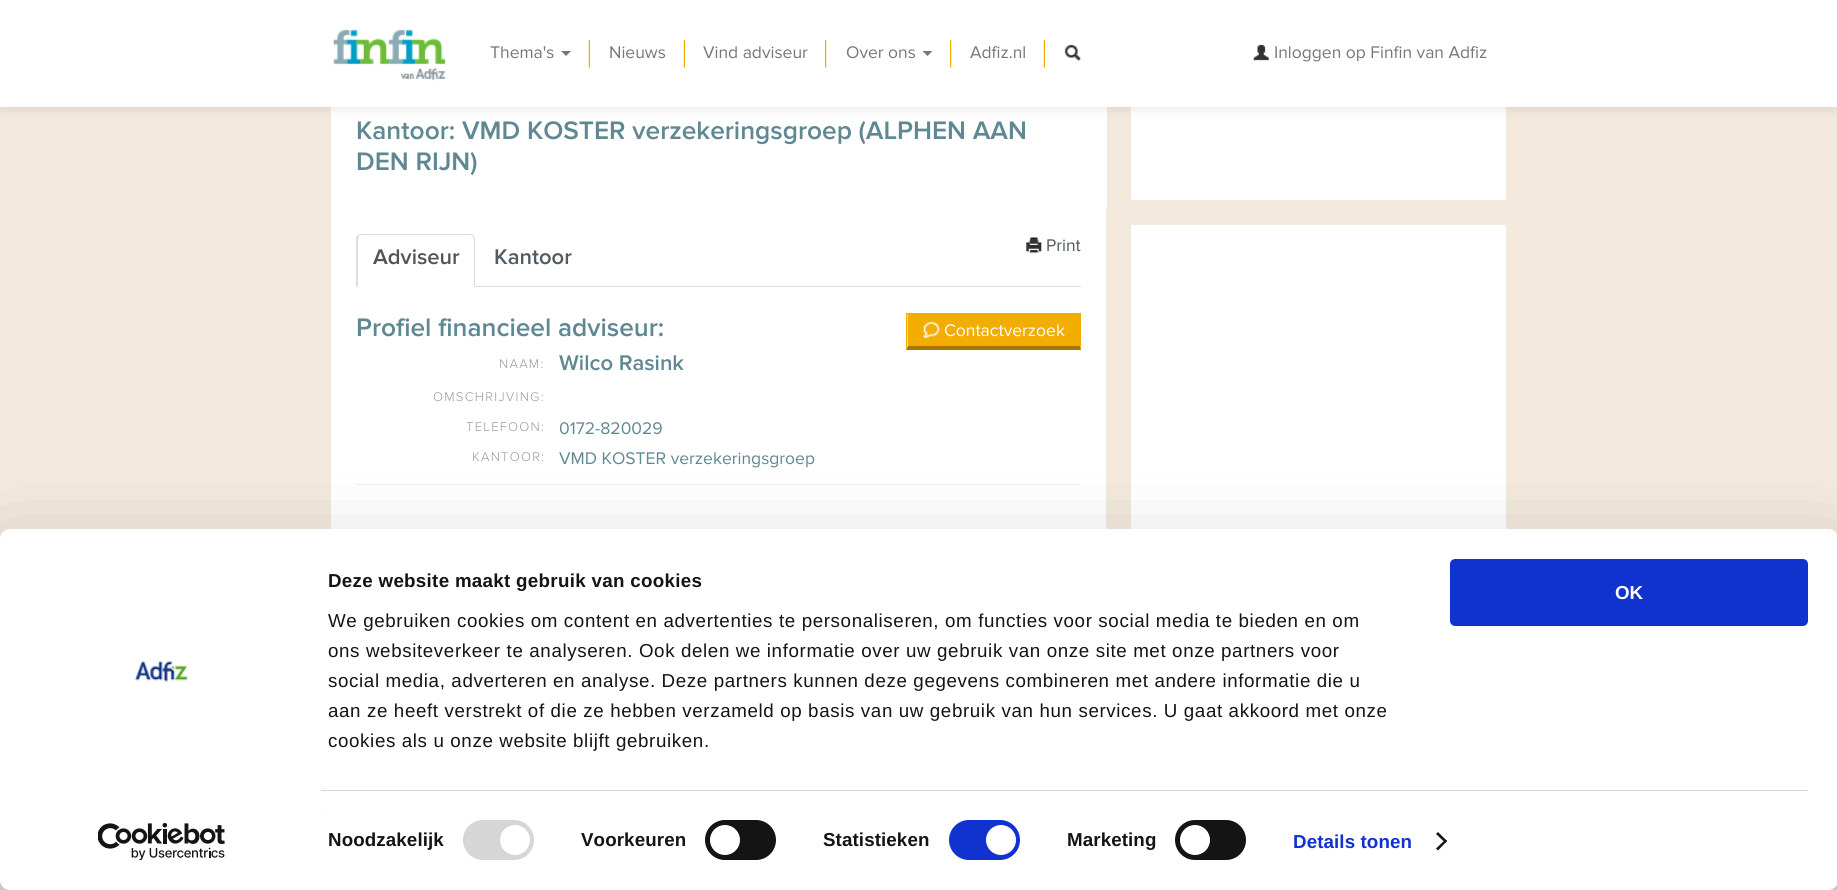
#include <cairo.h>
#include <math.h>
#include <stddef.h>

static cairo_t *ctx;

static void use_color(int r, int g, int b) {
    cairo_set_source_rgb(ctx, r / 255.0, g / 255.0, b / 255.0);
}

static void spaced_text(double x, double y, const char *s, double letter, double word) {
    cairo_move_to(ctx, x, y);
    while (*s) {
        char ch[5] = {0};
        int n = 0;
        do ch[n++] = *s++; while ((*s & 0xC0) == 0x80);
        cairo_show_text(ctx, ch);
        cairo_rel_move_to(ctx, letter + word * (*ch == ' '), 0);
    }
}

static void round_rect(double x, double y, double w, double h, double r) {
    cairo_new_sub_path(ctx);
    cairo_arc(ctx, x + w - r, y + h - r, r, 0, M_PI / 2);
    cairo_arc(ctx, x + r, y + h - r, r, M_PI / 2, M_PI);
    cairo_arc(ctx, x + r, y + r, r, M_PI, 1.5 * M_PI);
    cairo_arc(ctx, x + w - r, y + r, r, 1.5 * M_PI, 2 * M_PI);
    cairo_close_path(ctx);
}

static void shadow(double x, double y, double w, double h, double r, double blur, double alpha) {
    cairo_push_group_with_content(ctx, CAIRO_CONTENT_ALPHA);
    cairo_set_operator(ctx, CAIRO_OPERATOR_SOURCE);
    for (int i = 15; i >= -15 && fmin(w, h) + blur * i / 3 > 0; i -= 2) {
        double e = blur * i / 6;
        cairo_set_source_rgba(ctx, 0, 0, 0, alpha * erfc((i - 1) / 8.5) / 2);
        round_rect(x - e, y - e, w + 2 * e, h + 2 * e, fmax(0, fmin(r + e + blur * .6, fmin(w, h) / 2 + e)));
        cairo_fill(ctx);
    }
    cairo_pattern_t *soft = cairo_pop_group(ctx);
    cairo_mask(ctx, soft);
    cairo_pattern_destroy(soft);
}

static void picture(const char *path, double x, double y, double w, double h) {
    cairo_surface_t *image = cairo_image_surface_create_from_png(path);
    cairo_save(ctx);
    cairo_set_source_surface(ctx, image, x, y);
    cairo_rectangle(ctx, x, y, w, h);
    cairo_fill(ctx);
    cairo_restore(ctx);
    cairo_surface_destroy(image);
}

int main(void) {
    cairo_surface_t *surface = cairo_image_surface_create(CAIRO_FORMAT_RGB24, 1837, 890);
    ctx = cairo_create(surface);
    cairo_font_options_t *options = cairo_font_options_create();
    cairo_font_options_set_hint_metrics(options, CAIRO_HINT_METRICS_OFF);
    cairo_font_options_set_hint_style(options, CAIRO_HINT_STYLE_NONE);
    cairo_set_font_options(ctx, options);
    cairo_set_miter_limit(ctx, 4);
    use_color(243, 233, 221);
    cairo_paint(ctx);
    use_color(255, 255, 255);
    cairo_rectangle(ctx, 331, 107, 776, 102);
    cairo_fill(ctx);
    cairo_rectangle(ctx, 1131, 107, 375, 93);
    cairo_fill(ctx);
    use_color(0, 0, 0);
    shadow(0, 1, 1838, 108, 0, 6, 0.1);
    use_color(255, 255, 255);
    cairo_rectangle(ctx, 0, 0, 1837, 107);
    cairo_fill(ctx);
    picture("img1.png", 333, 29, 113, 52);
    picture("img2.png", 588, 40, 2, 28);
    cairo_select_font_face(ctx, "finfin", CAIRO_FONT_SLANT_NORMAL, CAIRO_FONT_WEIGHT_NORMAL);
    cairo_set_font_size(ctx, 17.5);
    use_color(119, 119, 119);
    cairo_move_to(ctx, 490, 58);
    cairo_show_text(ctx, "Thema's");
    cairo_new_path(ctx);
    cairo_move_to(ctx, 561, 51);
    cairo_line_to(ctx, 571, 51);
    cairo_line_to(ctx, 566, 56);
    cairo_close_path(ctx);
    cairo_fill(ctx);
    picture("img2.png", 683, 40, 2, 28);
    cairo_move_to(ctx, 609, 58);
    cairo_show_text(ctx, "Nieuws");
    picture("img3.png", 825, 40, 2, 28);
    cairo_move_to(ctx, 703, 58);
    cairo_show_text(ctx, "Vind adviseur");
    picture("img3.png", 950, 40, 2, 28);
    cairo_move_to(ctx, 846, 58);
    cairo_show_text(ctx, "Over ons");
    cairo_new_path(ctx);
    cairo_move_to(ctx, 922.5, 51);
    cairo_line_to(ctx, 932.5, 51);
    cairo_line_to(ctx, 927.5, 56);
    cairo_close_path(ctx);
    cairo_fill(ctx);
    picture("img2.png", 1043, 40, 2, 28);
    cairo_move_to(ctx, 970, 58);
    cairo_show_text(ctx, "Adfiz.nl");
    picture("img4.png", 1064, 44, 18, 18);
    picture("img5.png", 1253, 44, 16, 17);
    cairo_move_to(ctx, 1274, 58);
    cairo_show_text(ctx, "Inloggen op Finfin van Adfiz");
    cairo_select_font_face(ctx, "finfin SemiBold", CAIRO_FONT_SLANT_NORMAL, CAIRO_FONT_WEIGHT_NORMAL);
    cairo_set_font_size(ctx, 26.25);
    use_color(95, 136, 147);
    cairo_move_to(ctx, 356, 139);
    cairo_show_text(ctx, "Kantoor: VMD KOSTER verzekeringsgroep (ALPHEN AAN");
    cairo_move_to(ctx, 356, 170);
    cairo_show_text(ctx, "DEN RIJN)");
    use_color(255, 255, 255);
    cairo_rectangle(ctx, 331, 209, 775, 320);
    cairo_fill(ctx);
    picture("img6.png", 1026, 237, 16, 16);
    cairo_select_font_face(ctx, "finfin", CAIRO_FONT_SLANT_NORMAL, CAIRO_FONT_WEIGHT_NORMAL);
    cairo_set_font_size(ctx, 17.5);
    use_color(81, 91, 97);
    cairo_move_to(ctx, 1046, 251);
    cairo_show_text(ctx, "Print");
    use_color(221, 221, 221);
    cairo_rectangle(ctx, 475, 286, 606, 1);
    cairo_fill(ctx);
    cairo_new_path(ctx);
    cairo_move_to(ctx, 361, 234);
    cairo_line_to(ctx, 358, 235);
    cairo_line_to(ctx, 359, 236);
    cairo_line_to(ctx, 361, 235);
    cairo_line_to(ctx, 470, 235);
    cairo_line_to(ctx, 473, 236);
    cairo_line_to(ctx, 473, 235);
    cairo_curve_to(ctx, 473, 234, 471, 234, 470, 234);
    cairo_close_path(ctx);
    cairo_fill(ctx);
    cairo_new_path(ctx);
    cairo_move_to(ctx, 473, 235);
    cairo_curve_to(ctx, 474, 236, 475, 237, 475, 239);
    cairo_line_to(ctx, 475, 288);
    cairo_line_to(ctx, 474, 286);
    cairo_line_to(ctx, 474, 238);
    cairo_line_to(ctx, 473, 236);
    cairo_close_path(ctx);
    cairo_fill(ctx);
    cairo_new_path(ctx);
    cairo_move_to(ctx, 356, 288);
    cairo_line_to(ctx, 358, 286);
    cairo_line_to(ctx, 358, 239);
    cairo_line_to(ctx, 359, 236);
    cairo_line_to(ctx, 358, 235);
    cairo_line_to(ctx, 356, 237);
    cairo_close_path(ctx);
    cairo_fill(ctx);
    cairo_select_font_face(ctx, "finfin SemiBold", CAIRO_FONT_SLANT_NORMAL, CAIRO_FONT_WEIGHT_NORMAL);
    cairo_set_font_size(ctx, 22);
    use_color(85, 85, 85);
    cairo_move_to(ctx, 373, 264);
    cairo_show_text(ctx, "Adviseur");
    use_color(81, 91, 97);
    cairo_move_to(ctx, 494, 264);
    cairo_show_text(ctx, "Kantoor");
    cairo_set_font_size(ctx, 26.25);
    use_color(95, 136, 147);
    cairo_move_to(ctx, 356, 336);
    cairo_show_text(ctx, "Profiel financieel adviseur:");
    use_color(243, 172, 0);
    cairo_rectangle(ctx, 908, 314, 172, 32);
    cairo_fill(ctx);
    cairo_rectangle(ctx, 906, 313, 175, 1);
    cairo_fill(ctx);
    cairo_new_path(ctx);
    cairo_move_to(ctx, 1081, 312.5);
    cairo_line_to(ctx, 1081, 350);
    cairo_line_to(ctx, 1080, 346);
    cairo_line_to(ctx, 1080, 314);
    cairo_close_path(ctx);
    cairo_fill(ctx);
    use_color(166, 118, 0);
    cairo_new_path(ctx);
    cairo_move_to(ctx, 1081, 350);
    cairo_line_to(ctx, 906, 350);
    cairo_line_to(ctx, 908, 346);
    cairo_line_to(ctx, 1080, 346);
    cairo_close_path(ctx);
    cairo_fill(ctx);
    use_color(243, 172, 0);
    cairo_new_path(ctx);
    cairo_move_to(ctx, 906, 350);
    cairo_line_to(ctx, 906, 312.5);
    cairo_line_to(ctx, 907.5, 314);
    cairo_line_to(ctx, 907.5, 346);
    cairo_close_path(ctx);
    cairo_fill(ctx);
    picture("img7.png", 922, 321, 18, 18);
    cairo_select_font_face(ctx, "finfin", CAIRO_FONT_SLANT_NORMAL, CAIRO_FONT_WEIGHT_NORMAL);
    cairo_set_font_size(ctx, 17.5);
    use_color(255, 255, 255);
    cairo_move_to(ctx, 944, 336);
    cairo_show_text(ctx, "Contactverzoek");
    cairo_select_font_face(ctx, "finfin Light", CAIRO_FONT_SLANT_NORMAL, CAIRO_FONT_WEIGHT_NORMAL);
    cairo_set_font_size(ctx, 13.1);
    use_color(153, 153, 153);
    spaced_text(499, 368, "NAAM:", 1.25, 0);
    cairo_select_font_face(ctx, "finfin SemiBold", CAIRO_FONT_SLANT_NORMAL, CAIRO_FONT_WEIGHT_NORMAL);
    cairo_set_font_size(ctx, 22);
    use_color(95, 136, 147);
    cairo_move_to(ctx, 559, 370);
    cairo_show_text(ctx, "Wilco Rasink");
    cairo_select_font_face(ctx, "finfin Light", CAIRO_FONT_SLANT_NORMAL, CAIRO_FONT_WEIGHT_NORMAL);
    cairo_set_font_size(ctx, 13.1);
    use_color(153, 153, 153);
    spaced_text(433, 401, "OMSCHRIJVING:", 1.25, 0);
    spaced_text(466, 431, "TELEFOON:", 1.25, 0);
    cairo_select_font_face(ctx, "finfin", CAIRO_FONT_SLANT_NORMAL, CAIRO_FONT_WEIGHT_NORMAL);
    cairo_set_font_size(ctx, 17.5);
    use_color(95, 136, 147);
    cairo_move_to(ctx, 559, 434);
    cairo_show_text(ctx, "0172-820029");
    cairo_select_font_face(ctx, "finfin Light", CAIRO_FONT_SLANT_NORMAL, CAIRO_FONT_WEIGHT_NORMAL);
    cairo_set_font_size(ctx, 13.1);
    use_color(153, 153, 153);
    spaced_text(472, 461, "KANTOOR:", 1.25, 0);
    cairo_select_font_face(ctx, "finfin", CAIRO_FONT_SLANT_NORMAL, CAIRO_FONT_WEIGHT_NORMAL);
    cairo_set_font_size(ctx, 17.5);
    use_color(95, 136, 147);
    cairo_move_to(ctx, 559, 464);
    cairo_show_text(ctx, "VMD KOSTER verzekeringsgroep");
    use_color(238, 238, 238);
    cairo_rectangle(ctx, 356, 484, 725, 1);
    cairo_fill(ctx);
    use_color(255, 255, 255);
    cairo_rectangle(ctx, 1131, 225, 375, 304);
    cairo_fill(ctx);
    use_color(0, 0, 0);
    shadow(0, 566, 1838, 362, 10, 44, 0.3);
    use_color(255, 255, 255);
    round_rect(0, 529, 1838, 361, 10);
    cairo_fill(ctx);
    cairo_select_font_face(ctx, "Liberation Sans", CAIRO_FONT_SLANT_NORMAL, CAIRO_FONT_WEIGHT_BOLD);
    cairo_set_font_size(ctx, 18.75);
    use_color(20, 20, 20);
    spaced_text(328, 587, "Deze website maakt gebruik van cookies", 0.3, 0);
    cairo_select_font_face(ctx, "Liberation Sans", CAIRO_FONT_SLANT_NORMAL, CAIRO_FONT_WEIGHT_NORMAL);
    spaced_text(328, 627, "We gebruiken cookies om content en advertenties te personaliseren, om functies voor social media te bieden en om", 0.62, 0);
    spaced_text(328, 657, "ons websiteverkeer te analyseren. Ook delen we informatie over uw gebruik van onze site met onze partners voor", 0.62, 0);
    spaced_text(328, 687, "social media, adverteren en analyse. Deze partners kunnen deze gegevens combineren met andere informatie die u", 0.62, 0);
    spaced_text(328, 717, "aan ze heeft verstrekt of die ze hebben verzameld op basis van uw gebruik van hun services. U gaat akkoord met onze", 0.62, 0);
    spaced_text(328, 747, "cookies als u onze website blijft gebruiken.", 0.62, 0);
    use_color(214, 214, 214);
    cairo_rectangle(ctx, 321, 790, 1487, 1);
    cairo_fill(ctx);
    use_color(229, 229, 229);
    cairo_rectangle(ctx, 326, 809, 1, 1);
    cairo_fill(ctx);
    cairo_select_font_face(ctx, "Liberation Sans", CAIRO_FONT_SLANT_NORMAL, CAIRO_FONT_WEIGHT_BOLD);
    use_color(20, 20, 20);
    spaced_text(328, 846, "Noodzakelijk", 0.1, 0);
    use_color(214, 214, 214);
    round_rect(463, 820, 71, 40, 20);
    cairo_fill(ctx);
    use_color(255, 255, 255);
    cairo_arc(ctx, 515, 840, 15, 0, 2 * M_PI);
    cairo_fill(ctx);
    use_color(20, 20, 20);
    spaced_text(581, 846, "Voorkeuren", 0.1, 0);
    round_rect(705, 820, 71, 40, 20);
    cairo_fill(ctx);
    use_color(255, 255, 255);
    cairo_arc(ctx, 725, 840, 15, 0, 2 * M_PI);
    cairo_fill(ctx);
    use_color(20, 20, 20);
    spaced_text(823, 846, "Statistieken", 0.1, 0);
    use_color(16, 50, 207);
    round_rect(949, 820, 71, 40, 20);
    cairo_fill(ctx);
    use_color(255, 255, 255);
    cairo_arc(ctx, 1001, 840, 15, 0, 2 * M_PI);
    cairo_fill(ctx);
    use_color(20, 20, 20);
    spaced_text(1067, 846, "Marketing", 0.1, 0);
    round_rect(1175, 820, 71, 40, 20);
    cairo_fill(ctx);
    use_color(255, 255, 255);
    cairo_arc(ctx, 1195, 840, 15, 0, 2 * M_PI);
    cairo_fill(ctx);
    use_color(16, 50, 207);
    spaced_text(1293, 848, "Details tonen", 0.1, 0);
    use_color(20, 20, 20);
    cairo_new_path(ctx);
    cairo_move_to(ctx, 1438, 832);
    cairo_line_to(ctx, 1447, 841);
    cairo_line_to(ctx, 1445.5, 843);
    cairo_line_to(ctx, 1436, 834);
    cairo_close_path(ctx);
    cairo_fill(ctx);
    cairo_new_path(ctx);
    cairo_move_to(ctx, 1445.5, 839.5);
    cairo_line_to(ctx, 1447, 841);
    cairo_line_to(ctx, 1438, 850.5);
    cairo_line_to(ctx, 1436, 848.5);
    cairo_close_path(ctx);
    cairo_fill(ctx);
    use_color(16, 50, 207);
    round_rect(1451.5, 560.5, 355, 64, 3.5);
    cairo_fill_preserve(ctx);
    cairo_set_line_width(ctx, 3);
    cairo_stroke(ctx);
    use_color(255, 255, 255);
    cairo_move_to(ctx, 1615, 599);
    cairo_show_text(ctx, "OK");
    picture("img8.png", 135, 661, 53, 21);
    picture("img9.png", 98, 823, 127, 37);
    cairo_surface_write_to_png(surface, "result.png");
    cairo_font_options_destroy(options);
    cairo_destroy(ctx);
    cairo_surface_destroy(surface);
    return 0;
}
